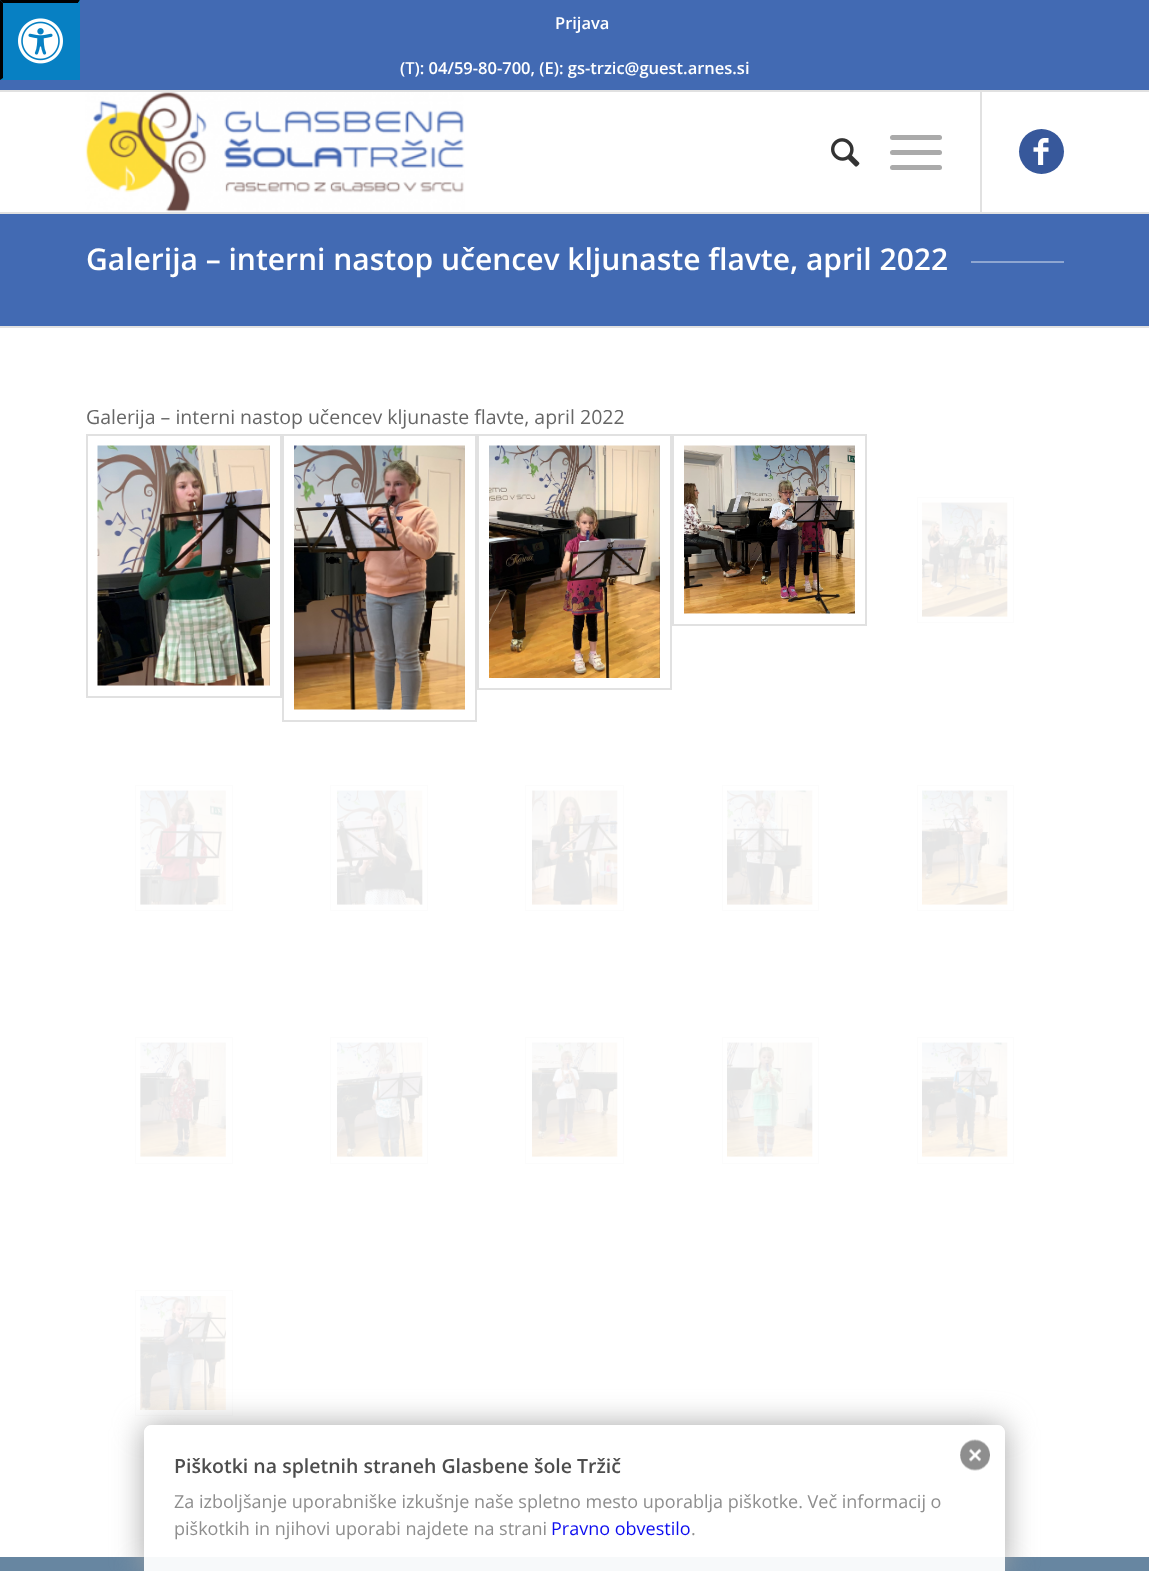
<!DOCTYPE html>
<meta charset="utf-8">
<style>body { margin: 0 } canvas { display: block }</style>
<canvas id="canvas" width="1149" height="1571"></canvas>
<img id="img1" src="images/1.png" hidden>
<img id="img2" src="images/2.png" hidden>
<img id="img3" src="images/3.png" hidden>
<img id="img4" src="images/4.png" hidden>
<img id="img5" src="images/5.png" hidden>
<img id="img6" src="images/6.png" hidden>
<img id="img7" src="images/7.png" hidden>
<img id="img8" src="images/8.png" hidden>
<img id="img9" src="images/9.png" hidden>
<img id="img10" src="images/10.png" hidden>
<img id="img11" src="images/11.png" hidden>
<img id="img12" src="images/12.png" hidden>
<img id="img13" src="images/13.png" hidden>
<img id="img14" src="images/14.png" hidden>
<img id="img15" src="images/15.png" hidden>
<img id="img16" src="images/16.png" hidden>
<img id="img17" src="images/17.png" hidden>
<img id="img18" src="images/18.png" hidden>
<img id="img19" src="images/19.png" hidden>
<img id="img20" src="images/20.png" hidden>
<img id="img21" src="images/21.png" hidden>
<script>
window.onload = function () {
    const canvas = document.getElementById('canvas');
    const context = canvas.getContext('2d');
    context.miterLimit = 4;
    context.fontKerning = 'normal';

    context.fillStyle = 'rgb(255, 255, 255)';
    context.fillRect(0, 0, 1149, 1571);
    context.fillStyle = 'rgb(66, 106, 179)';
    context.fillRect(0, 0, 1149, 90);
    context.fillStyle = 'rgb(7, 128, 195)';
    context.fillRect(0, 0, 80, 80);
    context.fillStyle = 'rgb(0, 0, 0)';
    context.beginPath();
    context.moveTo(0, 0);
    context.lineTo(80, 0);
    context.lineTo(78, 3);
    context.lineTo(3, 3);
    context.closePath();
    context.fill();
    context.fillStyle = 'rgb(7, 128, 195)';
    context.beginPath();
    context.moveTo(80, 0);
    context.lineTo(80, 80);
    context.lineTo(78, 78);
    context.lineTo(78, 3);
    context.closePath();
    context.fill();
    context.fillStyle = 'rgb(0, 0, 0)';
    context.beginPath();
    context.moveTo(0, 80);
    context.lineTo(0, 0);
    context.lineTo(3, 3);
    context.lineTo(3, 78);
    context.closePath();
    context.fill();
    context.drawImage(document.getElementById('img1'), 18, 18, 45, 46);
    context.fillStyle = 'rgb(225, 225, 225)';
    context.fillRect(0, 90, 1149, 2);
    context.fillRect(0, 212, 1149, 2);
    context.drawImage(document.getElementById('img2'), 85, 92, 380, 120);
    context.fillRect(980, 92, 2, 120);
    context.drawImage(document.getElementById('img3'), 831, 138, 29, 29);
    context.fillStyle = 'rgb(170, 170, 170)';
    context.beginPath();
    context.roundRect(890, 150, 52, 5, 2.5);
    context.fill();
    context.beginPath();
    context.roundRect(890, 135, 52, 5, 2.5);
    context.fill();
    context.beginPath();
    context.roundRect(890, 165, 52, 5, 2.5);
    context.fill();
    context.fillStyle = 'rgb(55, 88, 155)';
    context.beginPath();
    context.arc(1041.5, 151.5, 22.5, 0, 2 * Math.PI);
    context.fill();
    context.drawImage(document.getElementById('img4'), 1033, 138, 16, 27);
    context.fillStyle = 'rgb(66, 106, 179)';
    context.fillRect(0, 214, 1149, 112);
    context.fillStyle = 'rgb(142, 166, 209)';
    context.fillRect(971, 261, 93, 2);
    context.fillStyle = 'rgb(225, 225, 225)';
    context.fillRect(0, 326, 1149, 2);
    context.strokeStyle = 'rgb(225, 225, 225)';
    context.lineWidth = 2;
    context.strokeRect(87, 435, 194, 262);
    context.drawImage(document.getElementById('img5'), 97, 445, 173, 241);
    context.strokeRect(283, 435, 193, 286);
    context.drawImage(document.getElementById('img6'), 294, 445, 171, 265);
    context.strokeRect(478, 435, 193, 254);
    context.drawImage(document.getElementById('img7'), 489, 445, 171, 233);
    context.strokeRect(673, 435, 193, 190);
    context.drawImage(document.getElementById('img8'), 684, 445, 171, 169);
    context.strokeStyle = 'rgb(252, 252, 252)';
    context.lineWidth = 0.8;
    context.strokeRect(917.4, 497.4, 96.2, 125.2);
    context.drawImage(document.getElementById('img9'), 922, 502, 86, 115);
    context.strokeRect(135.4, 785.4, 97.2, 125.2);
    context.drawImage(document.getElementById('img10'), 140, 790, 86, 115);
    context.strokeRect(330.4, 785.4, 97.2, 125.2);
    context.drawImage(document.getElementById('img11'), 337, 790, 86, 115);
    context.strokeRect(525.4, 785.4, 98.2, 125.2);
    context.drawImage(document.getElementById('img12'), 532, 790, 86, 115);
    context.strokeRect(722.4, 785.4, 96.2, 125.2);
    context.drawImage(document.getElementById('img13'), 727, 790, 86, 115);
    context.strokeRect(917.4, 785.4, 96.2, 125.2);
    context.drawImage(document.getElementById('img14'), 922, 790, 86, 115);
    context.strokeRect(135.4, 1037.4, 97.2, 126.2);
    context.drawImage(document.getElementById('img15'), 140, 1042, 86, 115);
    context.strokeRect(330.4, 1037.4, 97.2, 126.2);
    context.drawImage(document.getElementById('img16'), 337, 1042, 86, 115);
    context.strokeRect(525.4, 1037.4, 98.2, 126.2);
    context.drawImage(document.getElementById('img17'), 532, 1042, 86, 115);
    context.strokeRect(722.4, 1037.4, 96.2, 126.2);
    context.drawImage(document.getElementById('img18'), 727, 1042, 86, 115);
    context.strokeRect(917.4, 1037.4, 96.2, 126.2);
    context.drawImage(document.getElementById('img19'), 922, 1042, 86, 115);
    context.strokeRect(135.4, 1290.4, 97.2, 125.2);
    context.drawImage(document.getElementById('img20'), 140, 1296, 86, 114);
    context.fillStyle = 'rgb(103, 134, 161)';
    context.fillRect(0, 1557, 1149, 14);
    context.save();
    context.beginPath();
    context.moveTo(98, 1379);
    context.lineTo(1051, 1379);
    context.lineTo(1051, 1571);
    context.lineTo(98, 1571);
    context.closePath();
    context.moveTo(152, 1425);
    context.lineTo(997, 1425);
    context.bezierCurveTo(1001.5, 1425, 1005, 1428.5, 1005, 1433);
    context.lineTo(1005, 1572);
    context.lineTo(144, 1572);
    context.lineTo(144, 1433);
    context.bezierCurveTo(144, 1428.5, 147.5, 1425, 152, 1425);
    context.closePath();
    context.clip('evenodd');
    context.fillStyle = 'rgba(161, 161, 161, 0.95)';
    context.filter = 'blur(15px)';
    context.beginPath();
    context.roundRect(144, 1425, 861, 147, 8);
    context.fill();
    context.filter = 'none';
    context.restore();
    context.fillStyle = 'rgba(255, 255, 255, 0.95)';
    context.beginPath();
    context.moveTo(152, 1425);
    context.lineTo(997, 1425);
    context.bezierCurveTo(1001.5, 1425, 1005, 1428.5, 1005, 1433);
    context.lineTo(1005, 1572);
    context.lineTo(144, 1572);
    context.lineTo(144, 1433);
    context.bezierCurveTo(144, 1428.5, 147.5, 1425, 152, 1425);
    context.closePath();
    context.fill();
    context.drawImage(document.getElementById('img21'), 960, 1439, 30, 32);
    context.font = '600 16.5px Open Sans';
    context.fillStyle = 'rgb(255, 255, 255)';
    context.fillText('Prijava', 555, 29);
    context.fillText('(T): 04/59-80-700, (E): gs-trzic@guest.arnes.si', 400, 74);
    context.font = '600 30px Open Sans';
    context.fillText('Galerija – interni nastop učencev kljunaste flavte, april 2022', 86, 270);
    context.font = '19.5px Open Sans';
    context.fillStyle = 'rgb(102, 102, 102)';
    context.fillText('Galerija – interni nastop učencev kljunaste flavte, april 2022', 86, 424);
    context.font = '600 19.5px Open Sans';
    context.fillStyle = 'rgb(77, 77, 77)';
    context.fillText('Piškotki na spletnih straneh Glasbene šole Tržič', 174, 1473);
    context.font = '18px Open Sans';
    context.fillStyle = 'rgb(142, 142, 142)';
    context.fillText('Za izboljšanje uporabniške izkušnje naše spletno mesto uporablja piškotke. Več informacij o', 174, 1508);
    context.fillText('piškotkih in njihovi uporabi najdete na strani', 174, 1535);
    context.fillStyle = 'rgb(13, 13, 239)';
    context.fillText('Pravno obvestilo', 551, 1535);
    context.fillStyle = 'rgb(142, 142, 142)';
    context.fillText('.', 691, 1535);
};
</script>
